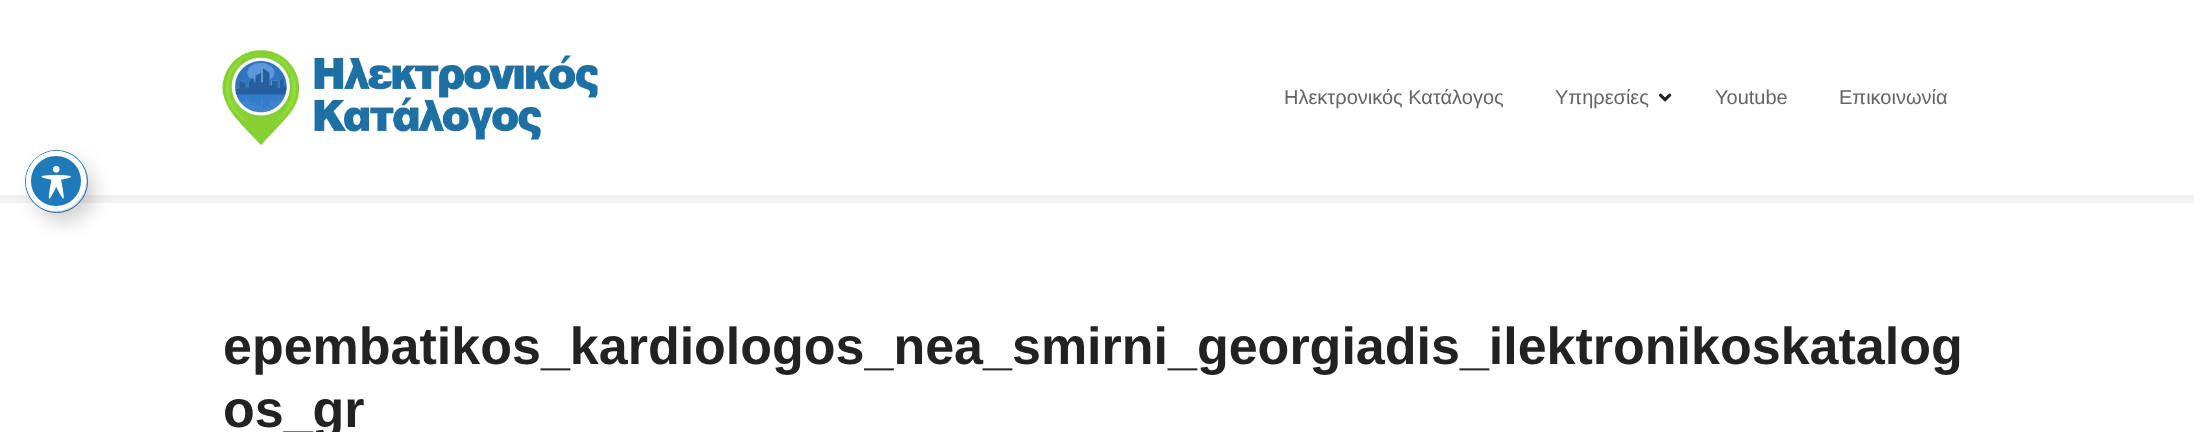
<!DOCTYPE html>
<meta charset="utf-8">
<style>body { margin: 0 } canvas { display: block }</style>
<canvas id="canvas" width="2194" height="432"></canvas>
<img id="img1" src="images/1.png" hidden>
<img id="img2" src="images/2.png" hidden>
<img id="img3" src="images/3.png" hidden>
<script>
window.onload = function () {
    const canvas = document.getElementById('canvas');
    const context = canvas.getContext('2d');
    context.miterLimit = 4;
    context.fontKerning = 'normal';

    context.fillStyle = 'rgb(255, 255, 255)';
    context.fillRect(0, 0, 2194, 432);
    context.fillStyle = 'rgb(242, 242, 242)';
    context.fillRect(0, 195, 2194, 8);
    context.beginPath();
    context.arc(56.5, 181.5, 31, 0, 2 * Math.PI);
    context.strokeStyle = 'rgb(30, 122, 185)';
    context.stroke();
    context.fillStyle = 'rgba(0, 0, 0, 0.2)';
    context.filter = 'blur(10px)';
    context.beginPath();
    context.roundRect(34, 161, 60, 60, 30);
    context.fill();
    context.filter = 'none';
    context.fillStyle = 'rgb(30, 122, 185)';
    context.beginPath();
    context.arc(56, 181, 27.5, 0, 2 * Math.PI);
    context.fill();
    context.strokeStyle = 'rgb(255, 255, 255)';
    context.lineWidth = 5;
    context.stroke();
    context.drawImage(document.getElementById('img1'), 41, 165, 30, 34);
    context.drawImage(document.getElementById('img2'), 222, 50, 376, 95);
    context.drawImage(document.getElementById('img3'), 1658, 93, 14, 9);
    context.font = '20px Arimo';
    context.fillStyle = 'rgb(100, 100, 100)';
    context.fillText('Ηλεκτρονικός Κατάλογος', 1284, 104);
    context.fillText('Υπηρεσίες', 1555, 104);
    context.fillText('Youtube', 1715, 104);
    context.fillText('Επικοινωνία', 1839, 104);
    context.font = 'bold 52px Arimo';
    context.fillStyle = 'rgb(34, 34, 34)';
    context.fillText('epembatikos_kardiologos_nea_smirni_georgiadis_ilektronikoskatalog', 223, 364);
    context.fillText('os_gr', 223, 427);
};
</script>
